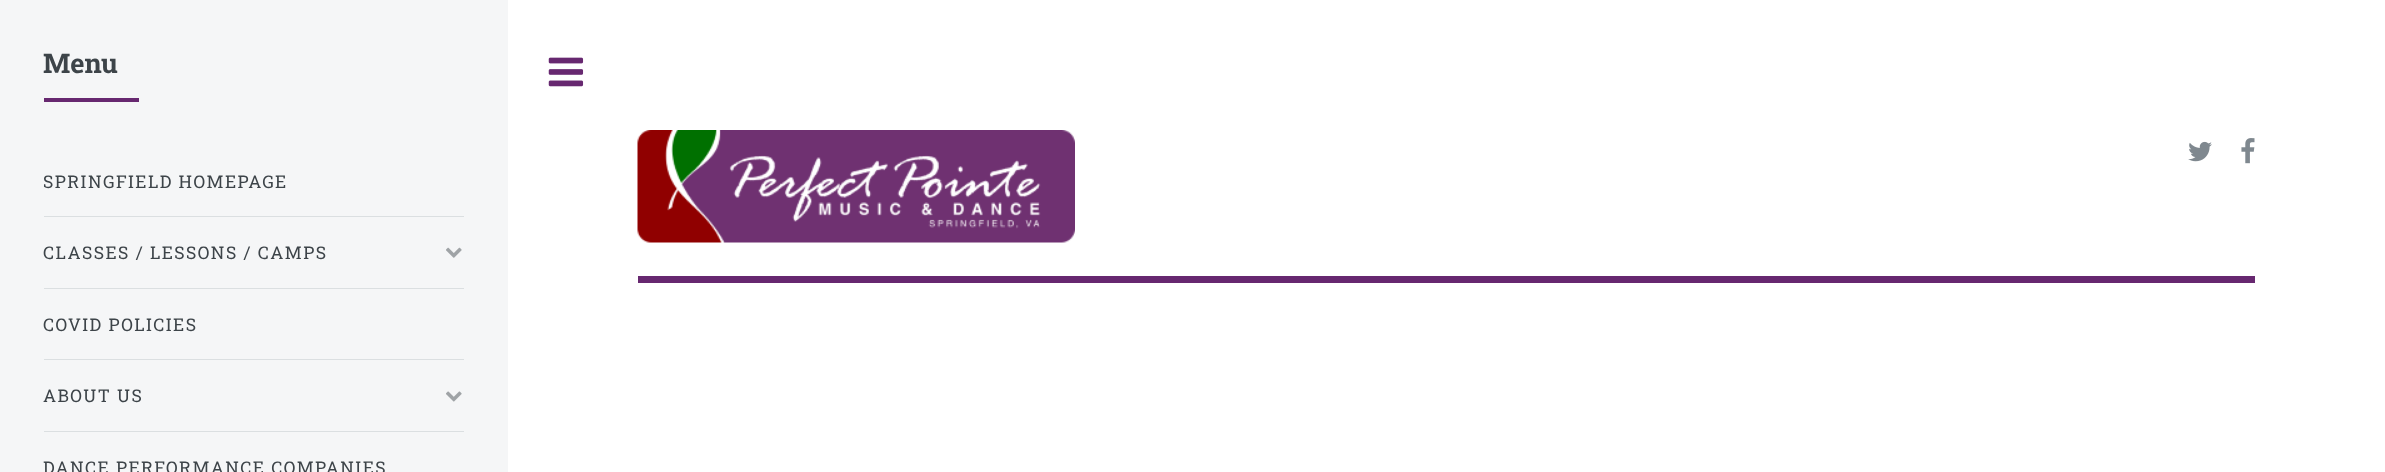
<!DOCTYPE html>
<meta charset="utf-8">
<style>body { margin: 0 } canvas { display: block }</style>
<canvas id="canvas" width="2385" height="472"></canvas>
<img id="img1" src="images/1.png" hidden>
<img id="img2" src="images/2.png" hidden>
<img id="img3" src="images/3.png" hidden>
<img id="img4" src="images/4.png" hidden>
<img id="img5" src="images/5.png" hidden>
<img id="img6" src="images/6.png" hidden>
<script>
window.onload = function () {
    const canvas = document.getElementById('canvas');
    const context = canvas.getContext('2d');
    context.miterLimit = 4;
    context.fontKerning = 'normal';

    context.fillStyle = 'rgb(255, 255, 255)';
    context.fillRect(0, 0, 2385, 472);
    context.fillStyle = 'rgb(245, 246, 247)';
    context.fillRect(0, 0, 508, 472);
    context.fillStyle = 'rgb(103, 40, 112)';
    context.fillRect(44, 98, 95, 4);
    context.fillStyle = 'rgb(219, 223, 225)';
    context.fillRect(44, 216, 420, 1);
    context.drawImage(document.getElementById('img1'), 446, 247, 16, 11);
    context.fillRect(44, 288, 420, 1);
    context.fillRect(44, 359, 420, 1);
    context.drawImage(document.getElementById('img2'), 446, 391, 16, 11);
    context.fillRect(44, 431, 420, 1);
    context.drawImage(document.getElementById('img3'), 548, 57, 36, 30);
    context.fillStyle = 'rgb(103, 40, 112)';
    context.fillRect(638, 276, 1617, 7);
    context.drawImage(document.getElementById('img4'), 637, 130, 438, 113);
    context.drawImage(document.getElementById('img5'), 2188, 141, 24, 21);
    context.drawImage(document.getElementById('img6'), 2241, 138, 14, 26);
    context.font = 'bold 27px Roboto Slab';
    context.fillStyle = 'rgb(61, 68, 73)';
    context.fillText('Menu', 43, 73);
    context.letterSpacing = '1.45px';
    context.font = '17.5px Roboto Slab';
    context.fillText('SPRINGFIELD HOMEPAGE', 43, 188);
    context.fillText('CLASSES / LESSONS / CAMPS', 43, 259);
    context.fillText('COVID POLICIES', 43, 331);
    context.fillText('ABOUT US', 43, 402);
    context.fillText('DANCE PERFORMANCE COMPANIES', 43, 474);
};
</script>
